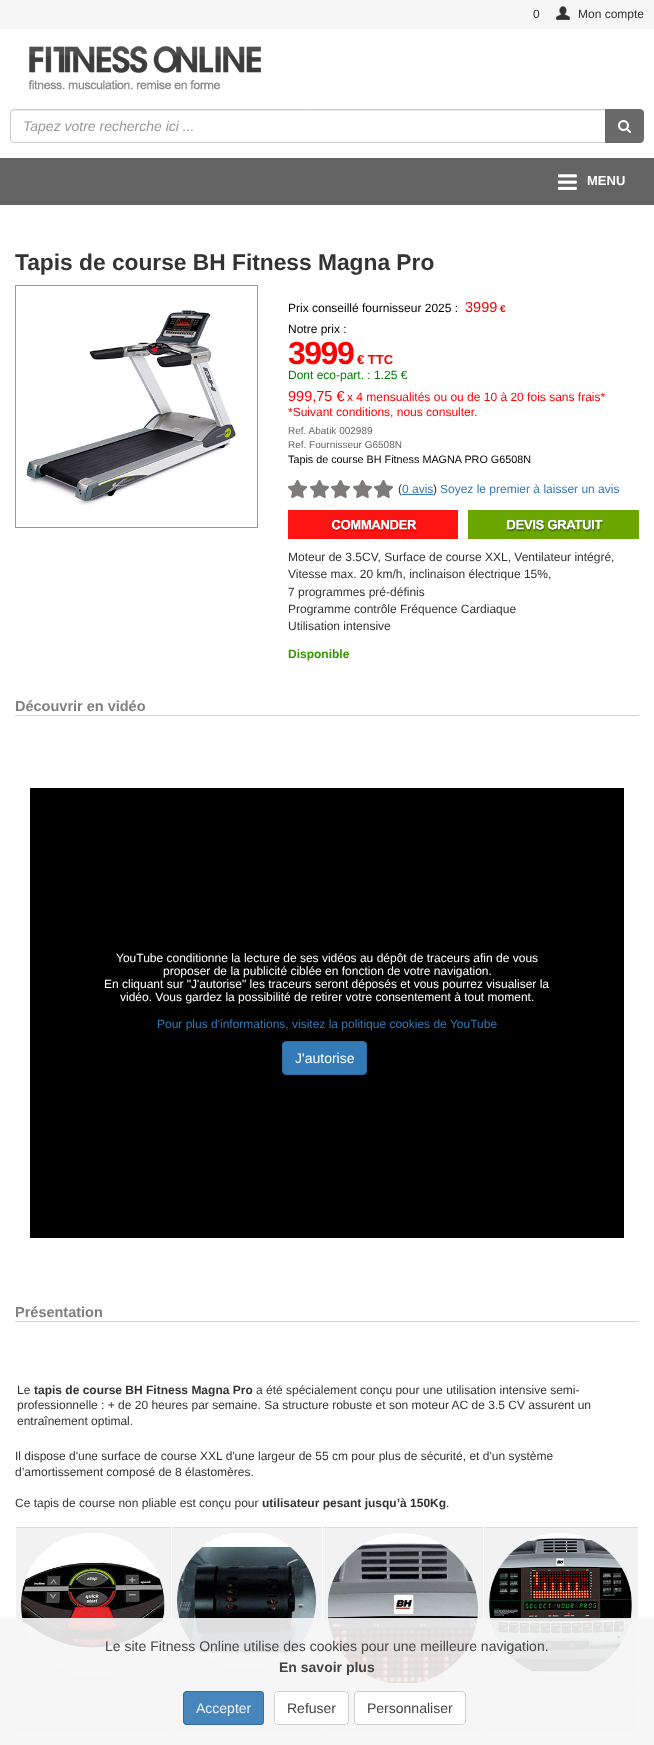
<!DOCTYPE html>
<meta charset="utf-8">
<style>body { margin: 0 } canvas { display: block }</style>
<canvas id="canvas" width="654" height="1745"></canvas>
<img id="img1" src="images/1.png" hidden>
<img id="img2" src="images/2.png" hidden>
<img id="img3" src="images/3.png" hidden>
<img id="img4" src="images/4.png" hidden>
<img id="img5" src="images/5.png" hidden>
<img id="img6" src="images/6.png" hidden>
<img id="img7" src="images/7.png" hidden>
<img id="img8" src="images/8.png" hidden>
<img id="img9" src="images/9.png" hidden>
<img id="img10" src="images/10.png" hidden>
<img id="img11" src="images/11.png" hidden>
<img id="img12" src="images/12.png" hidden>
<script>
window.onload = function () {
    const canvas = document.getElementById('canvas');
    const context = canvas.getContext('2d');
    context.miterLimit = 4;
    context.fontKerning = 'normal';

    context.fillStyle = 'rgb(255, 255, 255)';
    context.fillRect(0, 0, 654, 1745);
    context.fillStyle = 'rgb(246, 246, 246)';
    context.fillRect(0, 0, 654, 29);
    context.drawImage(document.getElementById('img1'), 556, 6, 14, 14);
    context.drawImage(document.getElementById('img2'), 28, 46, 233, 44);
    context.fillStyle = 'rgb(236, 236, 236)';
    context.beginPath();
    context.moveTo(14, 111);
    context.lineTo(605, 111);
    context.lineTo(605, 110);
    context.lineTo(14, 110);
    context.bezierCurveTo(12, 110, 11, 111, 11, 113);
    context.lineTo(11, 114);
    context.bezierCurveTo(11, 112, 12, 111, 14, 111);
    context.closePath();
    context.fill();
    context.beginPath();
    context.roundRect(10.5, 109.5, 595, 33, [3.5, 0, 0, 3.5]);
    context.strokeStyle = 'rgb(204, 204, 204)';
    context.stroke();
    context.fillStyle = 'rgb(105, 106, 105)';
    context.beginPath();
    context.roundRect(605.5, 109.5, 38, 33, [0, 3.5, 3.5, 0]);
    context.fill();
    context.strokeStyle = 'rgb(105, 106, 105)';
    context.stroke();
    context.drawImage(document.getElementById('img3'), 618, 120, 13, 13);
    context.fillStyle = 'rgb(100, 100, 100)';
    context.fillRect(0, 158, 654, 47);
    context.drawImage(document.getElementById('img4'), 558, 174, 19, 16);
    context.strokeStyle = 'rgb(153, 153, 153)';
    context.strokeRect(15.5, 285.5, 242, 242);
    context.drawImage(document.getElementById('img5'), 26, 310, 210, 196);
    context.drawImage(document.getElementById('img6'), 288, 480, 105, 18);
    context.fillStyle = 'rgb(51, 122, 183)';
    context.fillRect(402, 494, 31, 1);
    context.fillStyle = 'rgb(255, 20, 20)';
    context.fillRect(288, 510, 170, 29);
    context.drawImage(document.getElementById('img7'), 331, 520, 87, 12);
    context.fillStyle = 'rgb(106, 165, 0)';
    context.fillRect(468, 510, 171, 29);
    context.drawImage(document.getElementById('img8'), 507, 518, 97, 14);
    context.fillStyle = 'rgb(213, 213, 213)';
    context.fillRect(15, 715, 624, 1);
    context.fillStyle = 'rgb(0, 0, 0)';
    context.fillRect(30, 788, 594, 450);
    context.fillStyle = 'rgb(51, 122, 183)';
    context.beginPath();
    context.roundRect(282.5, 1041.5, 84, 33, 3.5);
    context.fill();
    context.strokeStyle = 'rgb(46, 109, 164)';
    context.stroke();
    context.fillStyle = 'rgb(213, 213, 213)';
    context.fillRect(15, 1321, 624, 1);
    context.fillStyle = 'rgb(243, 242, 243)';
    context.fillRect(16, 1528, 155, 160);
    context.fillStyle = 'rgb(221, 221, 221)';
    context.fillRect(15, 1527, 624, 1);
    context.fillStyle = 'rgb(255, 255, 255)';
    context.fillRect(171, 1527, 1, 1);
    context.fillRect(15, 1527, 1, 1);
    context.drawImage(document.getElementById('img9'), 21, 1533, 144, 143);
    context.fillStyle = 'rgb(243, 242, 243)';
    context.fillRect(484, 1528, 154, 160);
    context.fillStyle = 'rgb(255, 255, 255)';
    context.fillRect(638, 1527, 1, 1);
    context.drawImage(document.getElementById('img10'), 489, 1533, 143, 144);
    context.fillStyle = 'rgb(243, 242, 243)';
    context.fillRect(172, 1528, 150, 160);
    context.fillStyle = 'rgb(255, 255, 255)';
    context.fillRect(322, 1527, 1, 1);
    context.drawImage(document.getElementById('img11'), 177, 1533, 139, 136);
    context.fillStyle = 'rgb(243, 242, 243)';
    context.fillRect(323, 1528, 160, 160);
    context.fillStyle = 'rgb(255, 255, 255)';
    context.fillRect(483, 1527, 1, 1);
    context.drawImage(document.getElementById('img12'), 328, 1533, 150, 150);
    context.fillStyle = 'rgb(243, 242, 243)';
    context.fillRect(16, 1689, 155, 44);
    context.fillRect(172, 1689, 150, 44);
    context.fillRect(323, 1689, 160, 44);
    context.fillRect(484, 1689, 154, 44);
    context.fillStyle = 'rgba(246, 246, 246, 0.9)';
    context.fillRect(0, 1618, 654, 127);
    context.fillStyle = 'rgba(51, 122, 183, 0.9)';
    context.beginPath();
    context.roundRect(183, 1691, 81, 34, 4);
    context.fill();
    context.beginPath();
    context.roundRect(183.5, 1691.5, 80, 33, 3.5);
    context.strokeStyle = 'rgba(46, 109, 164, 0.9)';
    context.stroke();
    context.fillStyle = 'rgb(254, 254, 254)';
    context.beginPath();
    context.roundRect(274, 1691, 75, 34, 4);
    context.fill();
    context.beginPath();
    context.roundRect(274.5, 1691.5, 74, 33, 3.5);
    context.strokeStyle = 'rgba(204, 204, 204, 0.9)';
    context.stroke();
    context.fillStyle = 'rgba(255, 255, 255, 0.9)';
    context.beginPath();
    context.roundRect(354.5, 1691.5, 111, 33, 3.5);
    context.fill();
    context.strokeStyle = 'rgb(208, 208, 208)';
    context.stroke();
    context.font = '12px Liberation Sans';
    context.fillStyle = 'rgb(51, 51, 51)';
    context.fillText('0', 533, 18);
    context.fillText('Mon compte', 578, 18);
    context.font = 'italic 14px Liberation Sans';
    context.fillStyle = 'rgb(153, 153, 153)';
    context.fillText('Tapez votre recherche ici ...', 23, 131);
    context.font = 'bold 13px Liberation Sans';
    context.fillStyle = 'rgb(255, 255, 255)';
    context.fillText('MENU', 587, 185);
    context.font = 'bold 22.75px Liberation Sans';
    context.fillStyle = 'rgb(51, 51, 51)';
    context.fillText('Tapis de course BH Fitness Magna Pro', 15, 270);
    context.font = '12px Liberation Sans';
    context.fillStyle = 'rgb(0, 0, 0)';
    context.fillText('Prix conseillé fournisseur 2025 :', 288, 312);
    context.font = '14.5px Liberation Sans';
    context.fillStyle = 'rgb(255, 0, 0)';
    context.fillText('3999', 465, 312);
    context.font = 'bold 10px Liberation Sans';
    context.fillText('€', 500, 312);
    context.font = '12px Liberation Sans';
    context.fillStyle = 'rgb(0, 0, 0)';
    context.fillText('Notre prix :', 288, 333);
    context.letterSpacing = '-1.5px';
    context.font = 'bold 32px Liberation Sans';
    context.fillStyle = 'rgb(255, 0, 0)';
    context.fillText('3999', 288, 364);
    context.letterSpacing = '0px';
    context.font = 'bold 13px Liberation Sans';
    context.fillText('€ TTC', 357, 364);
    context.font = '12px Liberation Sans';
    context.fillStyle = 'rgb(0, 128, 0)';
    context.fillText('Dont eco-part. : 1.25 €', 288, 379);
    context.font = '14.5px Liberation Sans';
    context.fillStyle = 'rgb(255, 0, 0)';
    context.fillText('999,75 €', 288, 401);
    context.font = '12px Liberation Sans';
    context.fillText('x 4 mensualités ou ou de 10 à 20 fois sans frais*', 347, 401);
    context.fillText('*Suivant conditions, nous consulter.', 288, 416);
    context.font = '10px Liberation Sans';
    context.fillStyle = 'rgb(102, 102, 102)';
    context.fillText('Ref. Abatik 002989', 288, 434);
    context.fillText('Ref. Fournisseur G6508N', 288, 448);
    context.font = '10.8px Liberation Sans';
    context.fillStyle = 'rgb(0, 0, 0)';
    context.fillText('Tapis de course BH Fitness MAGNA PRO G6508N', 288, 463);
    context.font = '12px Liberation Sans';
    context.fillStyle = 'rgb(51, 51, 51)';
    context.fillText('(', 398, 493);
    context.fillStyle = 'rgb(51, 122, 183)';
    context.fillText('0 avis', 402, 493);
    context.fillStyle = 'rgb(51, 51, 51)';
    context.fillText(')', 433, 493);
    context.fillStyle = 'rgb(51, 122, 183)';
    context.fillText('Soyez le premier à laisser un avis', 440, 493);
    context.fillStyle = 'rgb(51, 51, 51)';
    context.fillText('Moteur de 3.5CV, Surface de course XXL, Ventilateur intégré,', 288, 561);
    context.fillText('Vitesse max. 20 km/h, inclinaison électrique 15%,', 288, 578);
    context.fillText('7 programmes pré-définis', 288, 596);
    context.fillText('Programme contrôle Fréquence Cardiaque', 288, 613);
    context.fillText('Utilisation intensive', 288, 630);
    context.font = 'bold 12px Liberation Sans';
    context.fillStyle = 'rgb(51, 153, 0)';
    context.fillText('Disponible', 288, 658);
    context.font = 'bold 14.5px Liberation Sans';
    context.fillStyle = 'rgb(128, 128, 128)';
    context.fillText('Découvrir en vidéo', 15, 711);
    context.font = '12px Liberation Sans';
    context.fillStyle = 'rgb(255, 255, 255)';
    context.fillText('YouTube conditionne la lecture de ses vidéos au dépôt de traceurs afin de vous', 116, 962);
    context.fillText('proposer de la publicité ciblée en fonction de votre navigation.', 163, 975);
    context.fillText('En cliquant sur "J\'autorise" les traceurs seront déposés et vous pourrez visualiser la', 104, 988);
    context.fillText('vidéo. Vous gardez la possibilité de retirer votre consentement à tout moment.', 120, 1001);
    context.fillStyle = 'rgb(51, 122, 183)';
    context.fillText('Pour plus d\'informations, visitez la politique cookies de YouTube', 157, 1028);
    context.font = '14px Liberation Sans';
    context.fillStyle = 'rgb(255, 255, 255)';
    context.fillText('J\'autorise', 295, 1063);
    context.font = 'bold 14.5px Liberation Sans';
    context.fillStyle = 'rgb(128, 128, 128)';
    context.fillText('Présentation', 15, 1317);
    context.font = '12px Liberation Sans';
    context.fillStyle = 'rgb(51, 51, 51)';
    context.fillText('Le', 17, 1394);
    context.font = 'bold 12px Liberation Sans';
    context.fillText('tapis de course BH Fitness Magna Pro', 34, 1394);
    context.font = '12px Liberation Sans';
    context.fillText('a été spécialement conçu pour une utilisation intensive semi-', 256, 1394);
    context.fillText('professionnelle : + de 20 heures par semaine. Sa structure robuste et son moteur AC de 3.5 CV assurent un', 17, 1409);
    context.fillText('entraînement optimal.', 17, 1425);
    context.fillText('Il dispose d\'une surface de course XXL d\'une largeur de 55 cm pour plus de sécurité, et d\'un système', 15, 1460);
    context.fillText('d’amortissement composé de 8 élastomères.', 15, 1476);
    context.fillText('Ce tapis de course non pliable est conçu pour', 15, 1507);
    context.font = 'bold 12px Liberation Sans';
    context.fillText('utilisateur pesant jusqu’à 150Kg', 262, 1507);
    context.font = '12px Liberation Sans';
    context.fillText('.', 446, 1507);
    context.font = '14px Liberation Sans';
    context.fillStyle = 'rgb(69, 69, 69)';
    context.fillText('Le site Fitness Online utilise des cookies pour une meilleure navigation.', 105, 1651);
    context.font = 'bold 14px Liberation Sans';
    context.fillText('En savoir plus', 279, 1672);
    context.font = '14px Liberation Sans';
    context.fillStyle = 'rgb(237, 243, 248)';
    context.fillText('Accepter', 196, 1713);
    context.fillStyle = 'rgb(69, 69, 69)';
    context.fillText('Refuser', 287, 1713);
    context.fillText('Personnaliser', 367, 1713);
};
</script>
